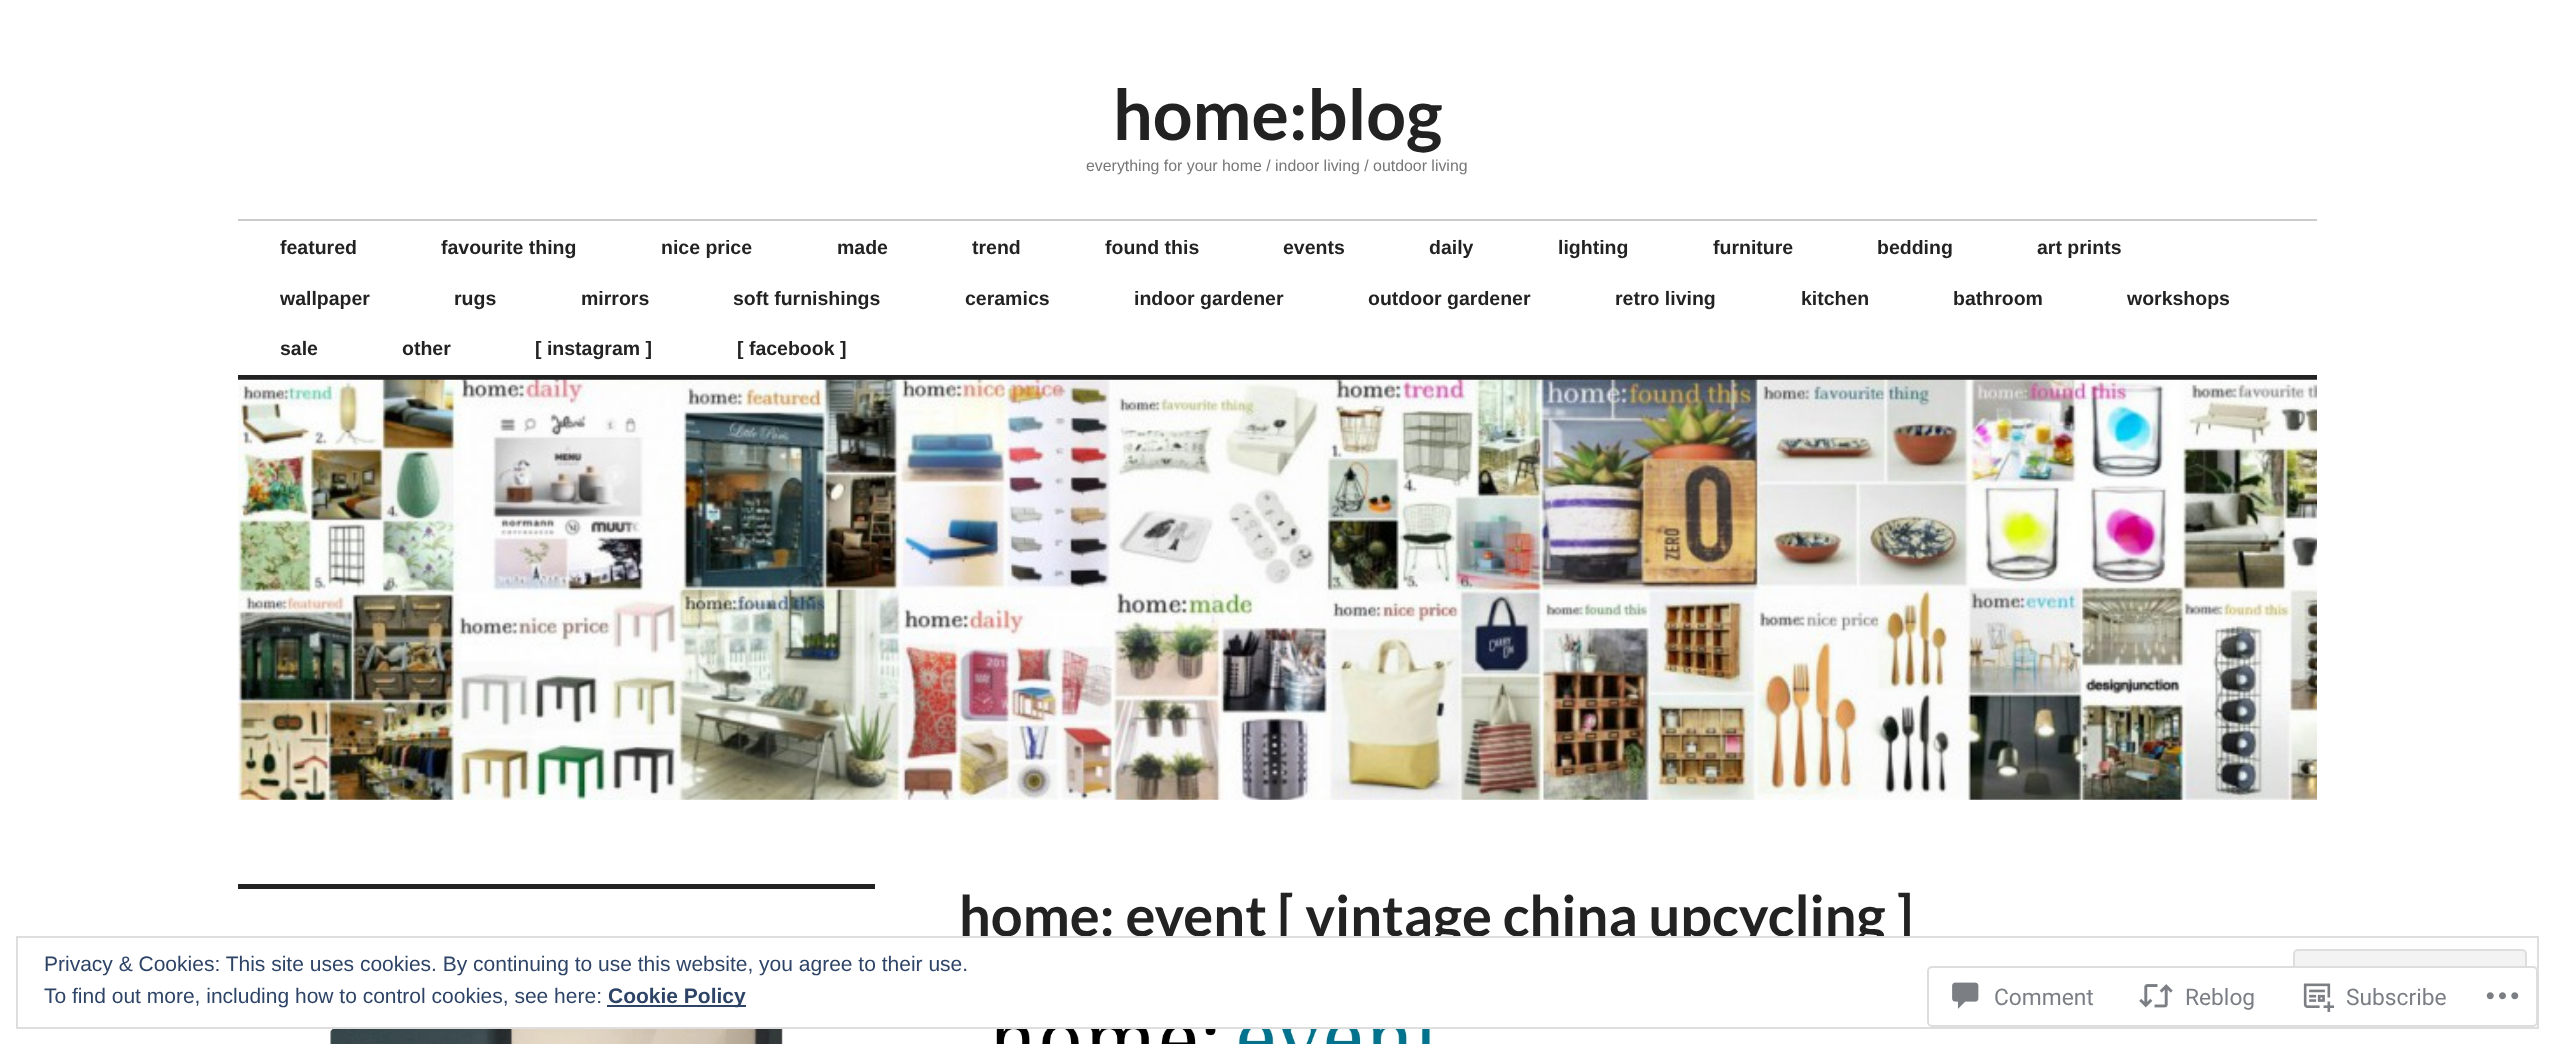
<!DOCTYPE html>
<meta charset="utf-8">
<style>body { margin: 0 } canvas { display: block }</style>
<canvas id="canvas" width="2555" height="1044"></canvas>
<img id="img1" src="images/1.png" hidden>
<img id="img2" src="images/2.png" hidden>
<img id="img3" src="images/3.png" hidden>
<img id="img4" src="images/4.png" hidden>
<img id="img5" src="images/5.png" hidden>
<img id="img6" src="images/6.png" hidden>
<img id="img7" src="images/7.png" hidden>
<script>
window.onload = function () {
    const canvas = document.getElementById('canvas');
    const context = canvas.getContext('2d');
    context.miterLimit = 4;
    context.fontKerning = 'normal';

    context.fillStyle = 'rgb(255, 255, 255)';
    context.fillRect(0, 0, 2555, 1044);
    context.fillStyle = 'rgb(204, 204, 204)';
    context.fillRect(238, 219, 2079, 2);
    context.fillStyle = 'rgb(34, 34, 34)';
    context.fillRect(238, 375, 2079, 5);
    context.drawImage(document.getElementById('img1'), 238, 379, 2079, 421);
    context.fillRect(238, 884, 637, 5);
    context.drawImage(document.getElementById('img2'), 330, 1029, 453, 15);
    context.drawImage(document.getElementById('img3'), 989, 1029, 452, 15);
    context.font = 'bold 70px Lato';
    context.fillText('home:blog', 1113, 140);
    context.font = '15.9px Arimo';
    context.fillStyle = 'rgb(119, 119, 119)';
    context.fillText('everything for your home / indoor living / outdoor living', 1086, 171);
    context.font = 'bold 19.5px Arimo';
    context.fillStyle = 'rgb(34, 34, 34)';
    context.fillText('featured', 280, 254);
    context.fillText('favourite thing', 441, 254);
    context.fillText('nice price', 661, 254);
    context.fillText('made', 837, 254);
    context.fillText('trend', 972, 254);
    context.fillText('found this', 1105, 254);
    context.fillText('events', 1283, 254);
    context.fillText('daily', 1429, 254);
    context.fillText('lighting', 1558, 254);
    context.fillText('furniture', 1713, 254);
    context.fillText('bedding', 1877, 254);
    context.fillText('art prints', 2037, 254);
    context.fillText('wallpaper', 280, 305);
    context.fillText('rugs', 454, 305);
    context.fillText('mirrors', 581, 305);
    context.fillText('soft furnishings', 733, 305);
    context.fillText('ceramics', 965, 305);
    context.fillText('indoor gardener', 1134, 305);
    context.fillText('outdoor gardener', 1368, 305);
    context.fillText('retro living', 1615, 305);
    context.fillText('kitchen', 1801, 305);
    context.fillText('bathroom', 1953, 305);
    context.fillText('workshops', 2127, 305);
    context.fillText('sale', 280, 355);
    context.fillText('other', 402, 355);
    context.fillText('[ instagram ]', 535, 355);
    context.fillText('[ facebook ]', 737, 355);
    context.font = 'bold 56px Lato';
    context.fillText('home: event [ vintage china upcycling ]', 959, 936);
    context.fillStyle = 'rgb(255, 255, 255)';
    context.fillRect(1280, 938, 630, 9);
    context.strokeStyle = 'rgb(222, 222, 222)';
    context.lineWidth = 2;
    context.strokeRect(17, 937, 2521, 91);
    context.font = '21px Arimo';
    context.fillStyle = 'rgb(46, 68, 103)';
    context.fillText('Privacy & Cookies: This site uses cookies. By continuing to use this website, you agree to their use.', 44, 971);
    context.fillStyle = 'rgb(243, 243, 243)';
    context.beginPath();
    context.roundRect(2294, 950, 232, 66, 4);
    context.fill();
    context.stroke();
    context.fillStyle = 'rgb(46, 68, 103)';
    context.fillText('To find out more, including how to control cookies, see here:', 44, 1003);
    context.fillRect(607, 1005, 139, 2);
    context.font = 'bold 21px Arimo';
    context.fillText('Cookie Policy', 608, 1003);
    context.fillStyle = 'rgba(255, 255, 255, 0.98)';
    context.beginPath();
    context.roundRect(1927, 966, 611, 61, 5);
    context.fill();
    context.beginPath();
    context.roundRect(1928, 967, 609, 59, 4);
    context.strokeStyle = 'rgba(220, 220, 222, 0.98)';
    context.stroke();
    context.drawImage(document.getElementById('img4'), 1952, 982, 27, 27);
    context.font = '22.75px Roboto';
    context.fillStyle = 'rgb(123, 127, 133)';
    context.fillText('Comment', 1994, 1005);
    context.drawImage(document.getElementById('img5'), 2139, 984, 34, 24);
    context.fillText('Reblog', 2185, 1005);
    context.drawImage(document.getElementById('img6'), 2303, 983, 32, 29);
    context.fillText('Subscribe', 2346, 1005);
    context.drawImage(document.getElementById('img7'), 2486, 992, 33, 8);
};
</script>
